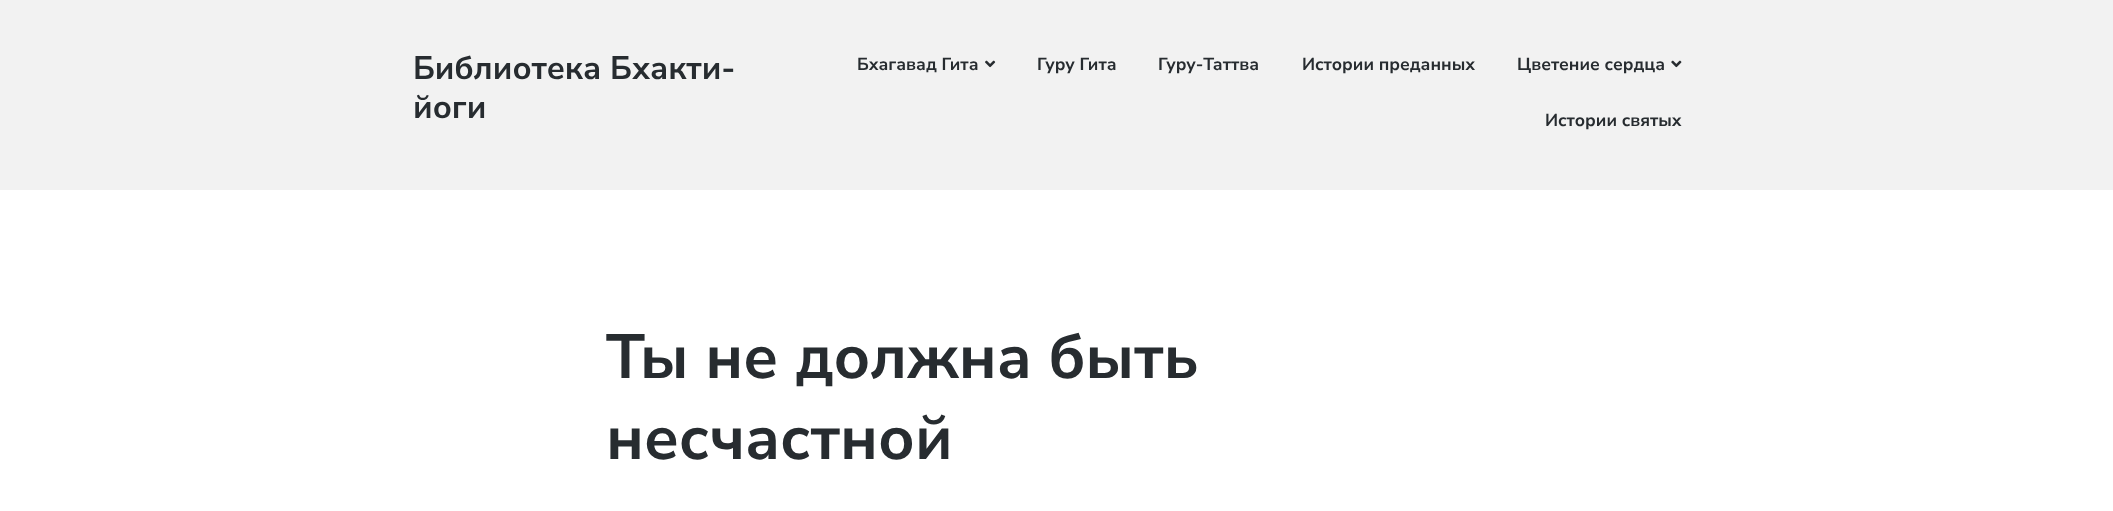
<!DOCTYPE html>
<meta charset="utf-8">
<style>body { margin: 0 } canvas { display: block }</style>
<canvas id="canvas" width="2113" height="511"></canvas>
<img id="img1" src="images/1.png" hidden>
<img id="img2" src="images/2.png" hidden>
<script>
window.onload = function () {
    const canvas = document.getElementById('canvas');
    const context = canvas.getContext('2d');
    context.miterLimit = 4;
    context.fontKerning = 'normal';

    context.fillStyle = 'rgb(255, 255, 255)';
    context.fillRect(0, 0, 2113, 511);
    context.fillStyle = 'rgb(242, 242, 242)';
    context.fillRect(0, 0, 2113, 190);
    context.drawImage(document.getElementById('img1'), 985, 60, 11, 8);
    context.drawImage(document.getElementById('img2'), 1671, 60, 11, 8);
    context.font = 'bold 32.5px Nunito Sans';
    context.fillStyle = 'rgb(39, 44, 48)';
    context.fillText('Библиотека Бхакти-', 413, 79);
    context.fillText('йоги', 413, 118);
    context.font = 'bold 17.5px Nunito Sans';
    context.fillText('Бхагавад Гита', 857, 70);
    context.fillText('Гуру Гита', 1037, 70);
    context.fillText('Гуру-Таттва', 1158, 70);
    context.fillText('Истории преданных', 1302, 70);
    context.fillText('Цветение сердца', 1517, 70);
    context.fillText('Истории святых', 1545, 126);
    context.font = 'bold 62.5px Nunito Sans';
    context.fillText('Ты не должна быть', 606, 378);
    context.fillText('несчастной', 606, 459);
};
</script>
